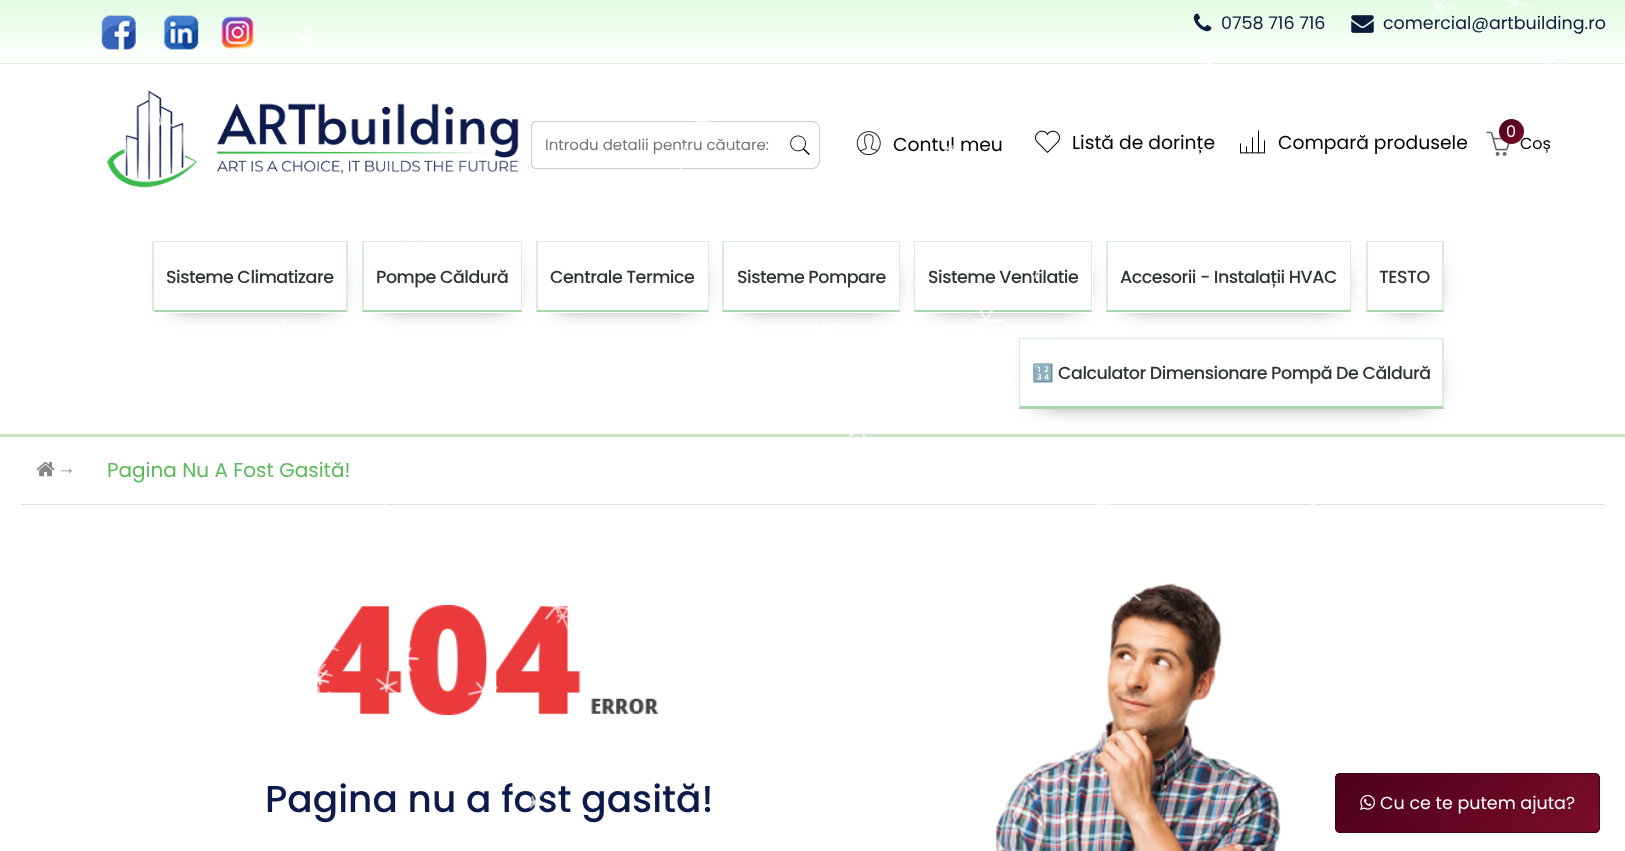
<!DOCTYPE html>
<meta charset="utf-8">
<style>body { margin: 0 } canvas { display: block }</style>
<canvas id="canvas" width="1625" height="851"></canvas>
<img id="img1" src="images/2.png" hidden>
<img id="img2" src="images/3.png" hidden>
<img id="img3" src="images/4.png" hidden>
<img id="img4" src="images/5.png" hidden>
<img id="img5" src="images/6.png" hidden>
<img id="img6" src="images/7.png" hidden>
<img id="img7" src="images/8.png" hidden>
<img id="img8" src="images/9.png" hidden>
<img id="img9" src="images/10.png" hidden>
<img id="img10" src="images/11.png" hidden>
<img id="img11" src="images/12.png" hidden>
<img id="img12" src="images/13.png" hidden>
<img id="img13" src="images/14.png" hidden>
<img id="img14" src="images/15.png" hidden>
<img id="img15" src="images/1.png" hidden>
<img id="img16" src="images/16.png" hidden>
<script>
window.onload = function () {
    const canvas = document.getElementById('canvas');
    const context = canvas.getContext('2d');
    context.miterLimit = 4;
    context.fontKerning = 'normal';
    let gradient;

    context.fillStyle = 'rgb(255, 255, 255)';
    context.fillRect(0, 0, 1625, 851);
    context.fillStyle = 'rgb(198, 230, 198)';
    context.fillRect(0, 434, 1625, 3);
    gradient = context.createLinearGradient(813, 0, 813, 63);
    gradient.addColorStop(0, 'rgb(226, 251, 226)');
    gradient.addColorStop(1, 'rgb(255, 255, 255)');
    context.fillStyle = gradient;
    context.fillRect(0, 0, 1625, 58);
    context.fillStyle = 'rgb(220, 242, 220)';
    context.fillRect(0, 63, 1625, 1);
    context.drawImage(document.getElementById('img1'), 101, 15, 35, 35);
    context.drawImage(document.getElementById('img2'), 164, 15, 35, 35);
    context.drawImage(document.getElementById('img3'), 221, 16, 33, 33);
    context.drawImage(document.getElementById('img4'), 1193, 13, 19, 19);
    context.drawImage(document.getElementById('img5'), 1351, 15, 23, 18);
    context.drawImage(document.getElementById('img6'), 106, 90, 413, 98);
    context.fillStyle = 'rgb(204, 204, 204)';
    context.beginPath();
    context.moveTo(536, 121);
    context.lineTo(781, 121);
    context.lineTo(781, 169);
    context.lineTo(536, 169);
    context.bezierCurveTo(533, 169, 531, 167, 531, 164);
    context.lineTo(531, 126);
    context.bezierCurveTo(531, 123, 533, 121, 536, 121);
    context.closePath();
    context.moveTo(536, 122);
    context.lineTo(781, 122);
    context.lineTo(781, 168);
    context.lineTo(536, 168);
    context.bezierCurveTo(534, 168, 532, 166, 532, 164);
    context.lineTo(532, 126);
    context.bezierCurveTo(532, 124, 534, 122, 536, 122);
    context.closePath();
    context.fill('evenodd');
    context.beginPath();
    context.moveTo(781, 121);
    context.lineTo(812, 121);
    context.bezierCurveTo(817, 121, 820, 125, 820, 129);
    context.lineTo(820, 161);
    context.bezierCurveTo(820, 165, 817, 169, 812, 169);
    context.lineTo(781, 169);
    context.closePath();
    context.moveTo(781, 122);
    context.lineTo(812, 122);
    context.bezierCurveTo(816, 122, 819, 125, 819, 129);
    context.lineTo(819, 161);
    context.bezierCurveTo(819, 165, 816, 168, 812, 168);
    context.lineTo(781, 168);
    context.closePath();
    context.fill('evenodd');
    context.drawImage(document.getElementById('img7'), 790, 135, 20, 20);
    context.drawImage(document.getElementById('img8'), 856, 131, 25, 25);
    context.drawImage(document.getElementById('img9'), 1035, 130, 25, 23);
    context.drawImage(document.getElementById('img10'), 1240, 130, 25, 24);
    context.drawImage(document.getElementById('img11'), 1486, 131, 24, 25);
    context.fillStyle = 'rgb(0, 0, 0)';
    context.filter = 'blur(12.5px)';
    context.beginPath();
    context.rect(174, 268, 157, 33);
    context.fill();
    context.filter = 'none';
    context.fillStyle = 'rgb(255, 255, 255)';
    context.beginPath();
    context.roundRect(153, 241, 195, 72, [2.5, 0, 0, 2.5]);
    context.fill();
    context.fillStyle = 'rgb(218, 237, 218)';
    context.beginPath();
    context.moveTo(155, 242);
    context.lineTo(154, 243);
    context.lineTo(153, 242);
    context.lineTo(154, 241);
    context.lineTo(348, 241);
    context.lineTo(346, 243);
    context.lineTo(346, 242);
    context.closePath();
    context.fill();
    context.fillStyle = 'rgba(86, 173, 86, 0.22)';
    context.beginPath();
    context.moveTo(348, 241);
    context.lineTo(348, 312);
    context.lineTo(346, 310);
    context.lineTo(346, 243);
    context.closePath();
    context.fill();
    context.fillStyle = 'rgb(171, 214, 171)';
    context.beginPath();
    context.moveTo(347, 312);
    context.lineTo(155, 312);
    context.lineTo(153, 311);
    context.lineTo(154, 310);
    context.lineTo(346, 310);
    context.closePath();
    context.fill();
    context.fillStyle = 'rgba(86, 173, 86, 0.22)';
    context.beginPath();
    context.moveTo(152, 242);
    context.lineTo(153, 242);
    context.lineTo(154, 243);
    context.lineTo(154, 299);
    context.bezierCurveTo(154, 310, 156, 306, 153, 311);
    context.lineTo(152, 311);
    context.closePath();
    context.fill();
    context.fillStyle = 'rgb(0, 0, 0)';
    context.filter = 'blur(12.5px)';
    context.beginPath();
    context.rect(384, 268, 122, 33);
    context.fill();
    context.filter = 'none';
    context.fillStyle = 'rgb(255, 255, 255)';
    context.fillRect(363, 241, 160, 72);
    context.fillStyle = 'rgb(218, 237, 218)';
    context.beginPath();
    context.moveTo(362, 241);
    context.lineTo(522, 241);
    context.lineTo(521, 242);
    context.lineTo(364, 242);
    context.closePath();
    context.fill();
    context.fillStyle = 'rgba(86, 173, 86, 0.22)';
    context.beginPath();
    context.moveTo(522, 241);
    context.lineTo(522, 312);
    context.lineTo(521, 310);
    context.lineTo(521, 242);
    context.closePath();
    context.fill();
    context.fillStyle = 'rgba(86, 173, 86, 0.5)';
    context.beginPath();
    context.moveTo(522, 312);
    context.lineTo(362, 312);
    context.lineTo(364, 310);
    context.lineTo(521, 310);
    context.closePath();
    context.fill();
    context.fillStyle = 'rgba(86, 173, 86, 0.22)';
    context.beginPath();
    context.moveTo(362, 312);
    context.lineTo(362, 241);
    context.lineTo(364, 242);
    context.lineTo(364, 310);
    context.closePath();
    context.fill();
    context.fillStyle = 'rgb(0, 0, 0)';
    context.filter = 'blur(12.5px)';
    context.beginPath();
    context.rect(558, 268, 135, 33);
    context.fill();
    context.filter = 'none';
    context.fillStyle = 'rgb(255, 255, 255)';
    context.fillRect(536, 241, 173, 72);
    context.fillStyle = 'rgb(218, 237, 218)';
    context.beginPath();
    context.moveTo(536, 241);
    context.lineTo(709, 241);
    context.lineTo(708, 242);
    context.lineTo(538, 242);
    context.closePath();
    context.fill();
    context.fillStyle = 'rgba(86, 173, 86, 0.22)';
    context.beginPath();
    context.moveTo(709, 241);
    context.lineTo(709, 312);
    context.lineTo(708, 310);
    context.lineTo(708, 242);
    context.closePath();
    context.fill();
    context.fillStyle = 'rgba(86, 173, 86, 0.5)';
    context.beginPath();
    context.moveTo(709, 312);
    context.lineTo(536, 312);
    context.lineTo(538, 310);
    context.lineTo(708, 310);
    context.closePath();
    context.fill();
    context.fillStyle = 'rgba(86, 173, 86, 0.22)';
    context.beginPath();
    context.moveTo(536, 312);
    context.lineTo(536, 241);
    context.lineTo(538, 242);
    context.lineTo(538, 310);
    context.closePath();
    context.fill();
    context.fillStyle = 'rgb(0, 0, 0)';
    context.filter = 'blur(12.5px)';
    context.beginPath();
    context.rect(744, 268, 140, 33);
    context.fill();
    context.filter = 'none';
    context.fillStyle = 'rgb(255, 255, 255)';
    context.fillRect(723, 241, 177, 72);
    context.fillStyle = 'rgb(218, 237, 218)';
    context.beginPath();
    context.moveTo(722, 241);
    context.lineTo(900, 241);
    context.lineTo(899, 242);
    context.lineTo(724, 242);
    context.closePath();
    context.fill();
    context.fillStyle = 'rgba(86, 173, 86, 0.22)';
    context.beginPath();
    context.moveTo(900, 241);
    context.lineTo(900, 312);
    context.lineTo(899, 310);
    context.lineTo(899, 242);
    context.closePath();
    context.fill();
    context.fillStyle = 'rgba(86, 173, 86, 0.5)';
    context.beginPath();
    context.moveTo(900, 312);
    context.lineTo(722, 312);
    context.lineTo(724, 310);
    context.lineTo(899, 310);
    context.closePath();
    context.fill();
    context.fillStyle = 'rgba(86, 173, 86, 0.22)';
    context.beginPath();
    context.moveTo(722, 312);
    context.lineTo(722, 241);
    context.lineTo(724, 242);
    context.lineTo(724, 310);
    context.closePath();
    context.fill();
    context.fillStyle = 'rgb(0, 0, 0)';
    context.filter = 'blur(12.5px)';
    context.beginPath();
    context.rect(935, 268, 141, 33);
    context.fill();
    context.filter = 'none';
    context.fillStyle = 'rgb(255, 255, 255)';
    context.fillRect(914, 241, 179, 72);
    context.fillStyle = 'rgb(218, 237, 218)';
    context.beginPath();
    context.moveTo(914, 241);
    context.lineTo(1092, 241);
    context.lineTo(1091, 242);
    context.lineTo(915, 242);
    context.closePath();
    context.fill();
    context.fillStyle = 'rgba(86, 173, 86, 0.22)';
    context.beginPath();
    context.moveTo(1092, 241);
    context.lineTo(1092, 312);
    context.lineTo(1091, 310);
    context.lineTo(1091, 242);
    context.closePath();
    context.fill();
    context.fillStyle = 'rgba(86, 173, 86, 0.5)';
    context.beginPath();
    context.moveTo(1092, 312);
    context.lineTo(914, 312);
    context.lineTo(915, 310);
    context.lineTo(1091, 310);
    context.closePath();
    context.fill();
    context.fillStyle = 'rgba(86, 173, 86, 0.22)';
    context.beginPath();
    context.moveTo(914, 312);
    context.lineTo(914, 241);
    context.lineTo(915, 242);
    context.lineTo(915, 310);
    context.closePath();
    context.fill();
    context.fillStyle = 'rgb(0, 0, 0)';
    context.filter = 'blur(12.5px)';
    context.beginPath();
    context.rect(1128, 268, 207, 33);
    context.fill();
    context.filter = 'none';
    context.fillStyle = 'rgb(255, 255, 255)';
    context.fillRect(1106, 241, 245, 72);
    context.fillStyle = 'rgb(218, 237, 218)';
    context.beginPath();
    context.moveTo(1106, 241);
    context.lineTo(1351, 241);
    context.lineTo(1350, 242);
    context.lineTo(1108, 242);
    context.closePath();
    context.fill();
    context.fillStyle = 'rgba(86, 173, 86, 0.22)';
    context.beginPath();
    context.moveTo(1351, 241);
    context.lineTo(1351, 312);
    context.lineTo(1350, 310);
    context.lineTo(1350, 242);
    context.closePath();
    context.fill();
    context.fillStyle = 'rgba(86, 173, 86, 0.5)';
    context.beginPath();
    context.moveTo(1351, 312);
    context.lineTo(1106, 312);
    context.lineTo(1108, 310);
    context.lineTo(1350, 310);
    context.closePath();
    context.fill();
    context.fillStyle = 'rgba(86, 173, 86, 0.22)';
    context.beginPath();
    context.moveTo(1106, 312);
    context.lineTo(1106, 241);
    context.lineTo(1108, 242);
    context.lineTo(1108, 310);
    context.closePath();
    context.fill();
    context.fillStyle = 'rgb(0, 0, 0)';
    context.filter = 'blur(12.5px)';
    context.beginPath();
    context.rect(1040, 364, 388, 34);
    context.fill();
    context.filter = 'none';
    context.fillStyle = 'rgb(255, 255, 255)';
    context.fillRect(1019, 338, 425, 71);
    context.fillStyle = 'rgb(218, 237, 218)';
    context.beginPath();
    context.moveTo(1019, 338);
    context.lineTo(1444, 338);
    context.lineTo(1442, 339);
    context.lineTo(1020, 339);
    context.closePath();
    context.fill();
    context.fillStyle = 'rgba(86, 173, 86, 0.22)';
    context.beginPath();
    context.moveTo(1444, 338);
    context.lineTo(1444, 409);
    context.lineTo(1442, 406);
    context.lineTo(1442, 339);
    context.closePath();
    context.fill();
    context.fillStyle = 'rgb(0, 0, 0)';
    context.filter = 'blur(12.5px)';
    context.beginPath();
    context.rect(1388, 268, 40, 33);
    context.fill();
    context.filter = 'none';
    context.fillStyle = 'rgb(255, 255, 255)';
    context.fillRect(1366, 241, 78, 72);
    context.fillStyle = 'rgb(218, 237, 218)';
    context.beginPath();
    context.moveTo(1366, 241);
    context.lineTo(1444, 241);
    context.lineTo(1442, 242);
    context.lineTo(1368, 242);
    context.closePath();
    context.fill();
    context.fillStyle = 'rgba(86, 173, 86, 0.22)';
    context.beginPath();
    context.moveTo(1444, 241);
    context.lineTo(1444, 312);
    context.lineTo(1442, 310);
    context.lineTo(1442, 242);
    context.closePath();
    context.fill();
    context.fillStyle = 'rgba(86, 173, 86, 0.5)';
    context.beginPath();
    context.moveTo(1444, 312);
    context.lineTo(1366, 312);
    context.lineTo(1368, 310);
    context.lineTo(1442, 310);
    context.closePath();
    context.fill();
    context.fillStyle = 'rgba(86, 173, 86, 0.22)';
    context.beginPath();
    context.moveTo(1366, 312);
    context.lineTo(1366, 241);
    context.lineTo(1368, 242);
    context.lineTo(1368, 310);
    context.closePath();
    context.fill();
    context.fillStyle = 'rgba(86, 173, 86, 0.5)';
    context.beginPath();
    context.moveTo(1444, 409);
    context.lineTo(1019, 409);
    context.lineTo(1020, 406);
    context.lineTo(1442, 406);
    context.closePath();
    context.fill();
    context.fillStyle = 'rgba(86, 173, 86, 0.22)';
    context.beginPath();
    context.moveTo(1019, 409);
    context.lineTo(1019, 338);
    context.lineTo(1020, 339);
    context.lineTo(1020, 406);
    context.closePath();
    context.fill();
    context.fillStyle = 'rgb(221, 221, 221)';
    context.fillRect(21, 504, 1583, 1);
    context.drawImage(document.getElementById('img12'), 36, 461, 19, 16);
    context.drawImage(document.getElementById('img13'), 317, 605, 342, 110);
    context.drawImage(document.getElementById('img14'), 995, 583, 286, 268);
    context.font = '17.5px Poppins';
    context.fillStyle = 'rgb(11, 28, 59)';
    context.fillText('0758 716 716', 1221, 29);
    context.fillText('comercial@artbuilding.ro', 1383, 29);
    context.font = '15px Poppins';
    context.fillStyle = 'rgb(117, 117, 117)';
    context.fillText('Introdu detalii pentru căutare:', 545, 150);
    context.font = '18.75px Poppins';
    context.fillStyle = 'rgb(0, 0, 0)';
    context.fillText('Contul meu', 893, 151);
    context.fillText('Listă de dorințe', 1072, 149);
    context.fillText('Compară produsele', 1278, 149);
    context.font = '16px Poppins';
    context.fillText('Coș', 1520, 149);
    gradient = context.createLinearGradient(1499, 119, 1524, 144);
    gradient.addColorStop(0, 'rgb(75, 0, 26)');
    gradient.addColorStop(1, 'rgb(122, 12, 43)');
    context.fillStyle = gradient;
    context.beginPath();
    context.arc(1511.5, 131.5, 12.5, 0, 2 * Math.PI);
    context.fill();
    context.fillStyle = 'rgb(255, 255, 255)';
    context.fillText('0', 1506, 137);
    context.letterSpacing = '-0.5px';
    context.font = '500 17.5px Poppins';
    context.fillStyle = 'rgb(46, 53, 56)';
    context.fillText('Sisteme Climatizare', 166, 283);
    context.fillText('Pompe Căldură', 376, 283);
    context.fillText('Centrale Termice', 550, 283);
    context.fillText('Sisteme Pompare', 737, 283);
    context.fillText('Sisteme Ventilatie', 928, 283);
    context.fillText('Accesorii - Instalații HVAC', 1120, 283);
    context.fillText('TESTO', 1379, 283);
    context.font = '17.5px Noto Color Emoji';
    context.fillText('🔢', 1032, 379);
    context.font = '500 17.5px Poppins';
    context.fillText('Calculator Dimensionare Pompă De Căldură', 1058, 379);
    context.letterSpacing = '0px';
    context.font = '18.75px Liberation Sans';
    context.fillStyle = 'rgb(135, 135, 135)';
    context.fillText('→', 57, 474);
    context.font = '20px Poppins';
    context.fillStyle = 'rgb(92, 184, 92)';
    context.fillText('Pagina Nu A Fost Gasită!', 107, 477);
    context.font = '500 37.5px Poppins';
    context.fillStyle = 'rgb(12, 27, 76)';
    context.fillText('Pagina nu a fost gasită!', 265, 812);
    context.drawImage(document.getElementById('img15'), 158, 0, 1406, 851);
    context.beginPath();
    context.roundRect(1335.5, 773.5, 264, 59, 4.5);
    context.strokeStyle = 'rgb(75, 0, 26)';
    context.stroke();
    gradient = context.createLinearGradient(1388, 723, 1548, 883);
    gradient.addColorStop(0, 'rgb(75, 0, 26)');
    gradient.addColorStop(1, 'rgb(122, 12, 43)');
    context.fillStyle = gradient;
    context.fillRect(1336, 774, 263, 57);
    context.save();
    context.beginPath();
    context.roundRect(1335, 773, 265, 60, 5);
    context.clip();
    gradient = context.createLinearGradient(1388, 780, 1548, 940);
    gradient.addColorStop(0, 'rgb(75, 0, 26)');
    gradient.addColorStop(1, 'rgb(122, 12, 43)');
    context.fillStyle = gradient;
    context.fillRect(1336, 831, 263, 2);
    context.restore();
    context.beginPath();
    context.roundRect(1335.5, 773.5, 264, 59, 4.5);
    context.stroke();
    context.drawImage(document.getElementById('img16'), 1360, 794, 15, 16);
    context.font = '17.5px Poppins';
    context.fillStyle = 'rgb(255, 255, 255)';
    context.fillText('Cu ce te putem ajuta?', 1380, 809);
};
</script>
